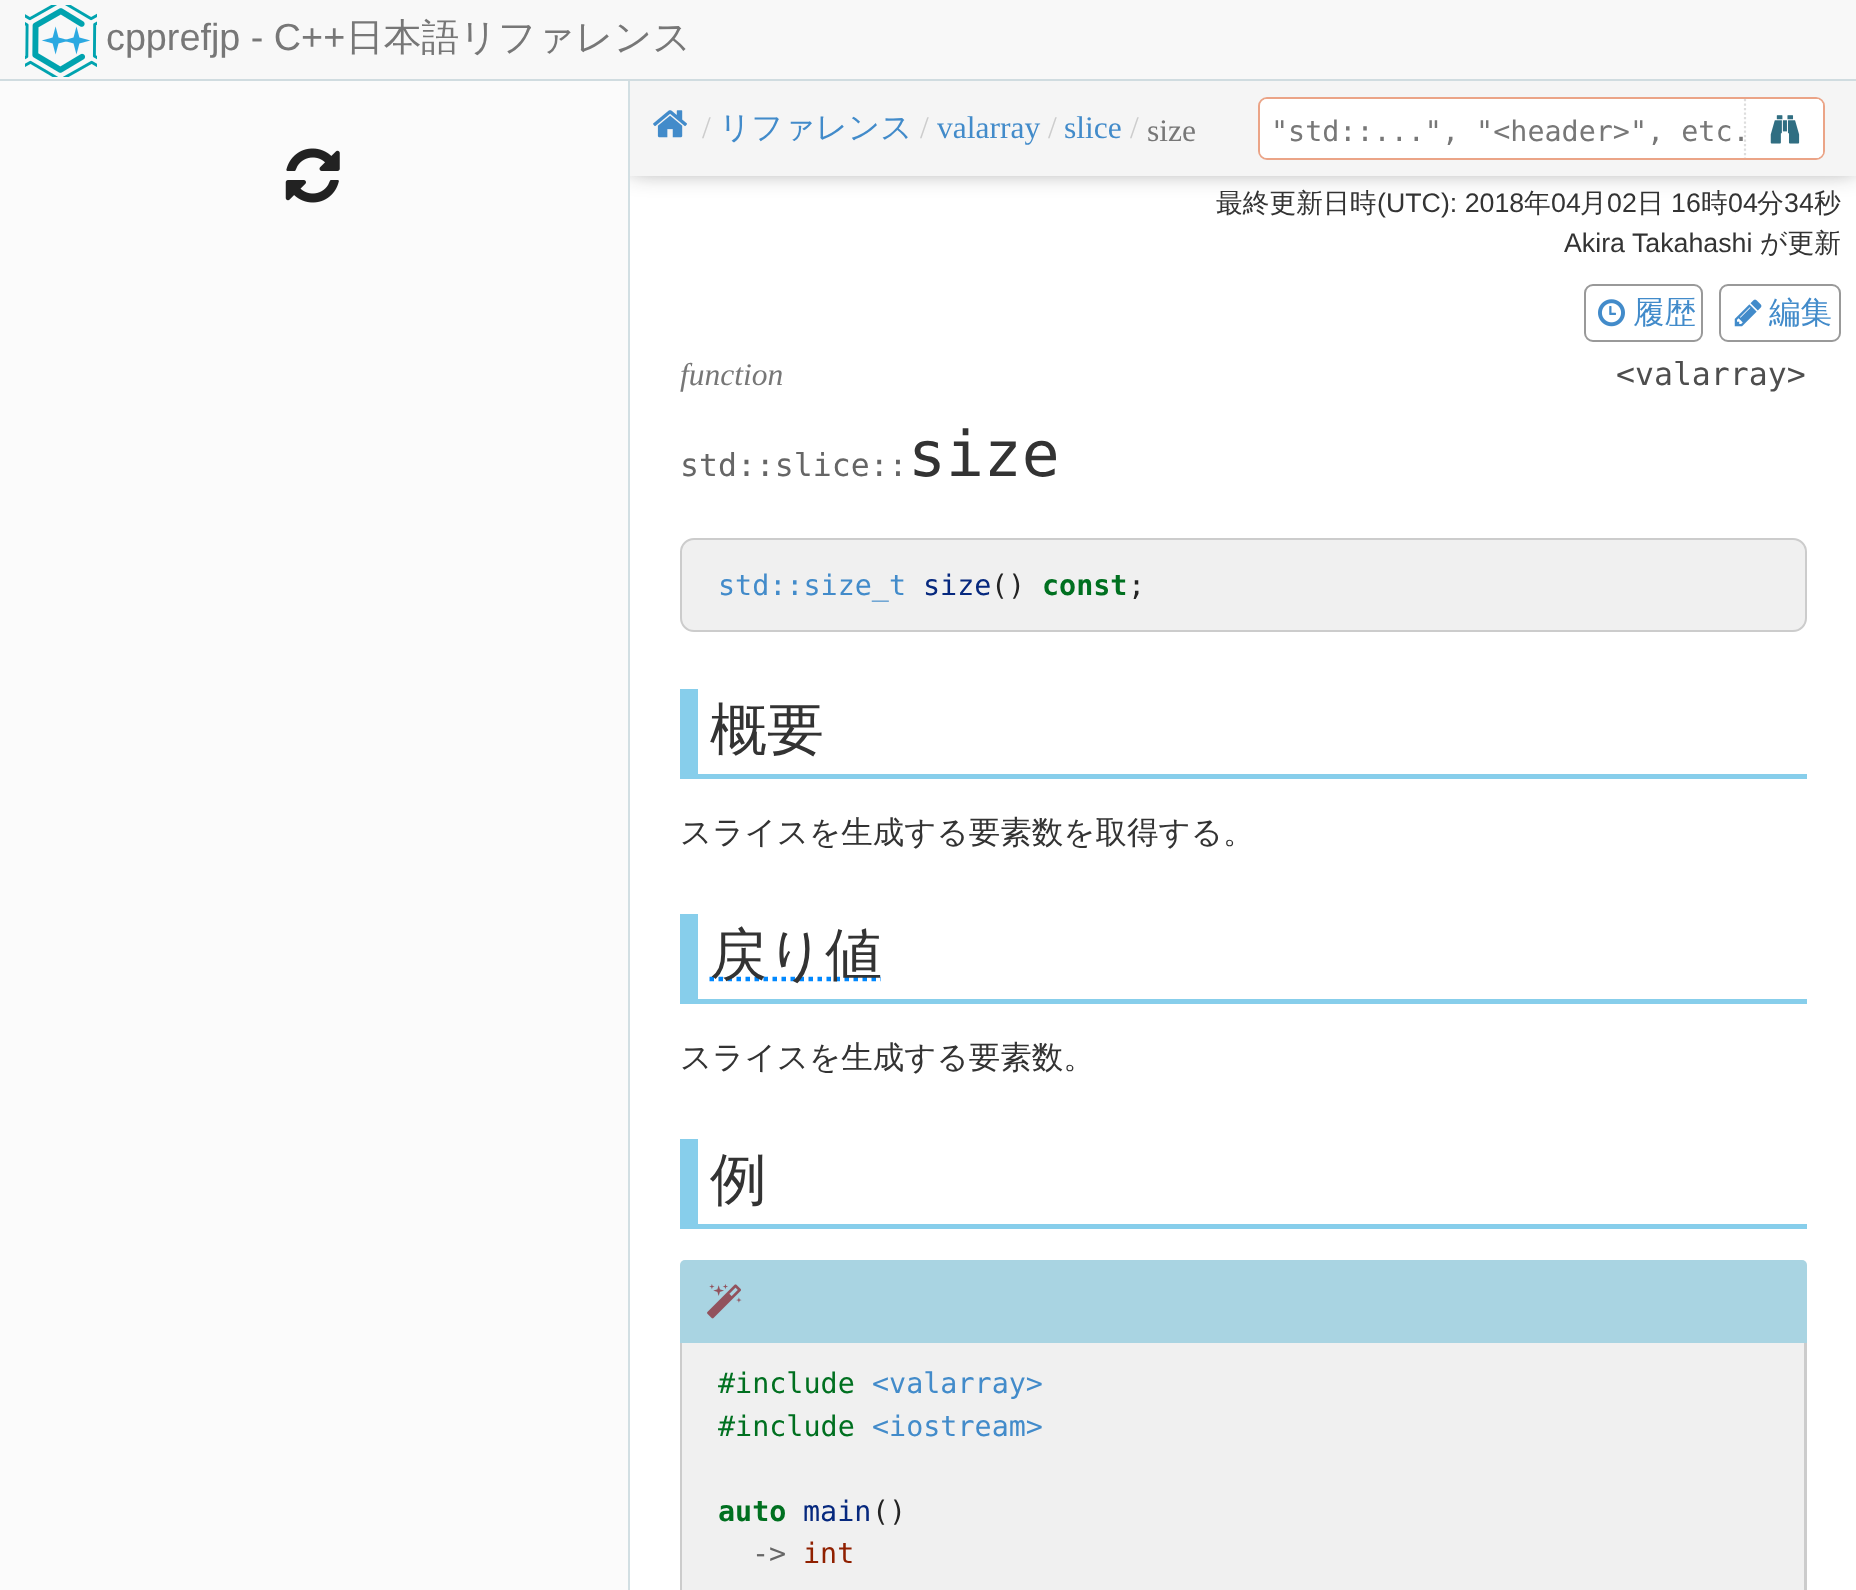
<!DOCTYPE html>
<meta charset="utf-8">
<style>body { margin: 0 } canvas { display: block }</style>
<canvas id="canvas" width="1856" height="1590"></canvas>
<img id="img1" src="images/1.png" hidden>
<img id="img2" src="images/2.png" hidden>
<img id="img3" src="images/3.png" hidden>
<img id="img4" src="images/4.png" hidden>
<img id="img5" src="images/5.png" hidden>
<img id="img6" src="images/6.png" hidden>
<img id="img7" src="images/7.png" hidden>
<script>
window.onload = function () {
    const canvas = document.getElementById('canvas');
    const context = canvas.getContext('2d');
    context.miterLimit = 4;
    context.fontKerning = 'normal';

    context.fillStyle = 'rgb(255, 255, 255)';
    context.fillRect(0, 0, 1856, 1590);
    context.fillStyle = 'rgba(20, 20, 20, 0.6)';
    context.filter = 'blur(13.5px)';
    context.beginPath();
    context.rect(630, 72, 1226, 95);
    context.fill();
    context.filter = 'none';
    context.fillStyle = 'rgb(248, 248, 248)';
    context.fillRect(0, 0, 1856, 79);
    context.fillStyle = 'rgb(208, 220, 224)';
    context.fillRect(0, 79, 1856, 2);
    context.drawImage(document.getElementById('img1'), 25, 5, 72, 72);
    context.fillStyle = 'rgb(251, 251, 251)';
    context.fillRect(0, 81, 628, 1509);
    context.fillStyle = 'rgb(210, 223, 227)';
    context.fillRect(628, 81, 2, 1509);
    context.drawImage(document.getElementById('img2'), 285, 148, 55, 55);
    context.fillStyle = 'rgb(245, 245, 245)';
    context.fillRect(630, 81, 1226, 95);
    context.drawImage(document.getElementById('img3'), 653, 110, 34, 28);
    context.beginPath();
    context.roundRect(1259, 98, 565, 61, 8);
    context.strokeStyle = 'rgb(235, 164, 135)';
    context.lineWidth = 2;
    context.stroke();
    context.fillStyle = 'rgb(255, 255, 255)';
    context.beginPath();
    context.roundRect(1260, 99, 563, 59, 7);
    context.fill();
    context.beginPath();
    context.roundRect(1744, 99, 79, 59, [0, 7, 7, 0]);
    context.fill();
    context.save();
    context.beginPath();
    context.roundRect(1260, 99, 563, 59, 7);
    context.clip();
    context.beginPath();
    context.moveTo(1745, 99);
    context.lineTo(1745, 162);
    context.strokeStyle = 'rgb(221, 221, 221)';
    context.lineWidth = 2.2;
    context.setLineDash([2.25, 2.25]);
    context.stroke();
    context.restore();
    context.drawImage(document.getElementById('img4'), 1770, 115, 30, 29);
    context.beginPath();
    context.roundRect(1585, 285, 117, 56, 8);
    context.strokeStyle = 'rgb(153, 153, 153)';
    context.stroke();
    context.drawImage(document.getElementById('img5'), 1598, 299, 27, 28);
    context.beginPath();
    context.roundRect(1720, 285, 120, 56, 8);
    context.stroke();
    context.drawImage(document.getElementById('img6'), 1734, 299, 28, 28);
    context.fillStyle = 'rgb(240, 240, 240)';
    context.beginPath();
    context.roundRect(681, 539, 1125, 92, 13);
    context.fill();
    context.strokeStyle = 'rgb(204, 204, 204)';
    context.stroke();
    context.fillStyle = 'rgb(135, 206, 235)';
    context.fillRect(698, 774, 1109, 5);
    context.fillRect(680, 689, 18, 90);
    context.fillRect(698, 999, 1109, 5);
    context.fillRect(680, 914, 18, 90);
    context.beginPath();
    context.moveTo(709.5, 979);
    context.lineTo(881, 979);
    context.strokeStyle = 'rgb(0, 136, 255)';
    context.lineWidth = 4.5;
    context.setLineDash([4.5, 4.5]);
    context.stroke();
    context.fillRect(698, 1224, 1109, 5);
    context.fillRect(680, 1139, 18, 90);
    context.fillStyle = 'rgb(169, 212, 226)';
    context.beginPath();
    context.roundRect(680, 1260, 1127, 83, [5, 5, 0, 0]);
    context.fill();
    context.drawImage(document.getElementById('img7'), 707, 1284, 35, 35);
    context.fillStyle = 'rgb(240, 240, 240)';
    context.fillRect(682, 1343, 1122, 247);
    context.fillStyle = 'rgb(204, 204, 204)';
    context.beginPath();
    context.moveTo(680, 1343);
    context.lineTo(1807, 1343);
    context.lineTo(1807, 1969);
    context.bezierCurveTo(1807, 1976, 1801, 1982, 1793, 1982);
    context.lineTo(693, 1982);
    context.bezierCurveTo(686, 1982, 680, 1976, 680, 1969);
    context.closePath();
    context.moveTo(682, 1343);
    context.lineTo(1804, 1343);
    context.lineTo(1804, 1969);
    context.bezierCurveTo(1804, 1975, 1799, 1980, 1793, 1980);
    context.lineTo(693, 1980);
    context.bezierCurveTo(687, 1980, 682, 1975, 682, 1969);
    context.closePath();
    context.fill('evenodd');
    context.font = '37.75px Liberation Sans';
    context.fillStyle = 'rgb(119, 119, 119)';
    context.fillText('cpprefjp - C++', 106, 50);
    context.font = '500 37.75px WenQuanYi Zen Hei';
    context.fillText('日本語リファレンス', 346, 50);
    context.font = '31.5px Liberation Serif';
    context.fillStyle = 'rgb(204, 204, 204)';
    context.fillText('/', 702, 138);
    context.font = '500 31.5px WenQuanYi Zen Hei';
    context.fillStyle = 'rgb(66, 139, 202)';
    context.fillText('リファレンス', 719, 138);
    context.font = '31.5px Liberation Serif';
    context.fillStyle = 'rgb(204, 204, 204)';
    context.fillText('/', 920, 138);
    context.fillStyle = 'rgb(66, 139, 202)';
    context.fillText('valarray', 937, 138);
    context.fillStyle = 'rgb(204, 204, 204)';
    context.fillText('/', 1048, 138);
    context.fillStyle = 'rgb(66, 139, 202)';
    context.fillText('slice', 1064, 138);
    context.fillStyle = 'rgb(204, 204, 204)';
    context.fillText('/', 1130, 138);
    context.fillStyle = 'rgb(119, 119, 119)';
    context.fillText('size', 1147, 141);
    context.font = '28.4px DejaVu Sans Mono';
    context.fillText('"std::...", "<header>", etc.', 1271, 141);
    context.font = '500 26.75px WenQuanYi Zen Hei';
    context.fillStyle = 'rgb(51, 51, 51)';
    context.fillText('最終更新日時', 1216, 212);
    context.font = '26.75px Liberation Sans';
    context.fillText('(UTC): 2018', 1377, 212);
    context.font = '500 26.75px WenQuanYi Zen Hei';
    context.fillText('年', 1524, 212);
    context.font = '26.75px Liberation Sans';
    context.fillText('04', 1551, 212);
    context.font = '500 26.75px WenQuanYi Zen Hei';
    context.fillText('月', 1580, 212);
    context.font = '26.75px Liberation Sans';
    context.fillText('02', 1607, 212);
    context.font = '500 26.75px WenQuanYi Zen Hei';
    context.fillText('日', 1637, 212);
    context.font = '26.75px Liberation Sans';
    context.fillText('16', 1671, 212);
    context.font = '500 26.75px WenQuanYi Zen Hei';
    context.fillText('時', 1701, 212);
    context.font = '26.75px Liberation Sans';
    context.fillText('04', 1728, 212);
    context.font = '500 26.75px WenQuanYi Zen Hei';
    context.fillText('分', 1757, 212);
    context.font = '26.75px Liberation Sans';
    context.fillText('34', 1784, 212);
    context.font = '500 26.75px WenQuanYi Zen Hei';
    context.fillText('秒', 1814, 212);
    context.font = '26.75px Liberation Sans';
    context.fillText('Akira Takahashi', 1564, 252);
    context.font = '500 26.75px WenQuanYi Zen Hei';
    context.fillText('が更新', 1760, 252);
    context.font = '500 31.5px WenQuanYi Zen Hei';
    context.fillStyle = 'rgb(66, 139, 202)';
    context.fillText('履歴', 1633, 323);
    context.fillText('編集', 1769, 323);
    context.font = 'italic 31.5px Liberation Serif';
    context.fillStyle = 'rgb(119, 119, 119)';
    context.fillText('function', 680, 385);
    context.font = '31.5px DejaVu Sans Mono';
    context.fillStyle = 'rgb(78, 78, 78)';
    context.fillText('<valarray>', 1616, 385);
    context.fillStyle = 'rgb(102, 102, 102)';
    context.fillText('std::slice::', 680, 476);
    context.font = '63px DejaVu Sans Mono';
    context.fillStyle = 'rgb(51, 51, 51)';
    context.fillText('size', 908, 476);
    context.font = '28.4px DejaVu Sans Mono';
    context.fillStyle = 'rgb(66, 139, 202)';
    context.fillText('std::size_t', 718, 595);
    context.fillStyle = 'rgb(6, 40, 126)';
    context.fillText('size', 923, 595);
    context.fillStyle = 'rgb(35, 35, 35)';
    context.fillText('()', 991, 595);
    context.font = 'bold 28.4px DejaVu Sans Mono';
    context.fillStyle = 'rgb(0, 112, 32)';
    context.fillText('const', 1042, 595);
    context.font = '28.4px DejaVu Sans Mono';
    context.fillStyle = 'rgb(35, 35, 35)';
    context.fillText(';', 1128, 595);
    context.font = '500 57px WenQuanYi Zen Hei';
    context.fillStyle = 'rgb(51, 51, 51)';
    context.fillText('概要', 710, 749);
    context.font = '500 31.5px WenQuanYi Zen Hei';
    context.fillText('スライスを生成する要素数を取得する。', 680, 843);
    context.font = '500 57px WenQuanYi Zen Hei';
    context.fillText('戻り値', 710, 974);
    context.font = '500 31.5px WenQuanYi Zen Hei';
    context.fillText('スライスを生成する要素数。', 680, 1068);
    context.font = '500 57px WenQuanYi Zen Hei';
    context.fillText('例', 710, 1199);
    context.font = '28.4px DejaVu Sans Mono';
    context.fillStyle = 'rgb(0, 112, 32)';
    context.fillText('#include', 718, 1393);
    context.fillStyle = 'rgb(66, 139, 202)';
    context.fillText('<valarray>', 872, 1393);
    context.fillStyle = 'rgb(0, 112, 32)';
    context.fillText('#include', 718, 1436);
    context.fillStyle = 'rgb(66, 139, 202)';
    context.fillText('<iostream>', 872, 1436);
    context.font = 'bold 28.4px DejaVu Sans Mono';
    context.fillStyle = 'rgb(0, 112, 32)';
    context.fillText('auto', 718, 1521);
    context.font = '28.4px DejaVu Sans Mono';
    context.fillStyle = 'rgb(6, 40, 126)';
    context.fillText('main', 803, 1521);
    context.fillStyle = 'rgb(35, 35, 35)';
    context.fillText('()', 872, 1521);
    context.fillStyle = 'rgb(102, 102, 102)';
    context.fillText('->', 752, 1563);
    context.fillStyle = 'rgb(144, 32, 0)';
    context.fillText('int', 803, 1563);
};
</script>
